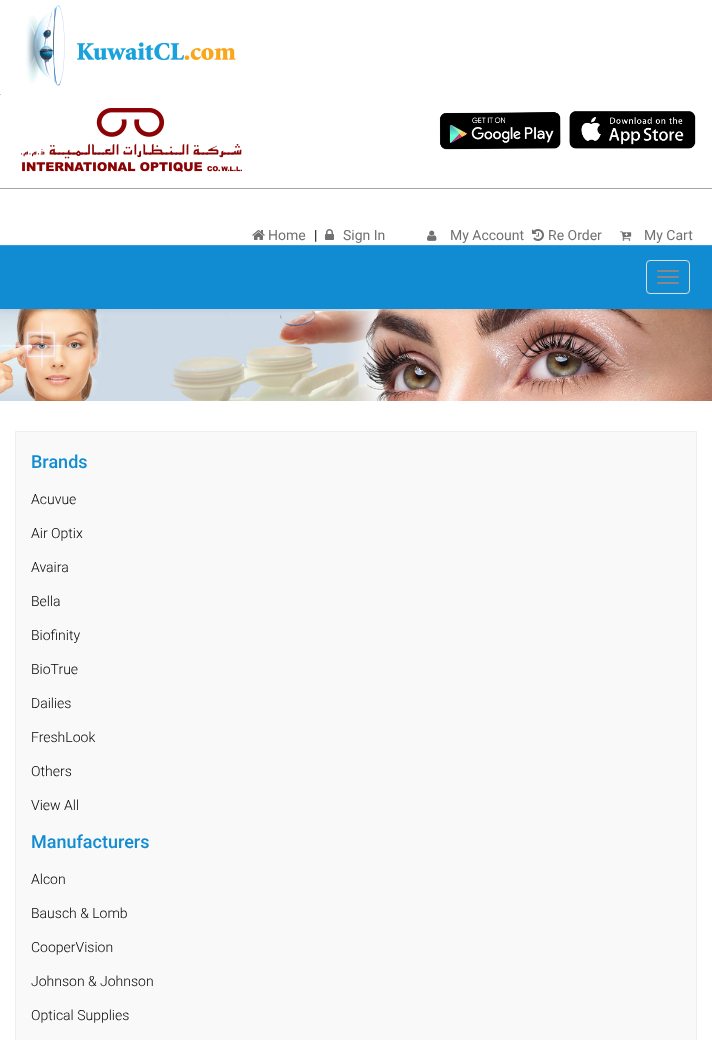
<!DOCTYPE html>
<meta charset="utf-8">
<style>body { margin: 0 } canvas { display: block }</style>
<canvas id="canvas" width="712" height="1040"></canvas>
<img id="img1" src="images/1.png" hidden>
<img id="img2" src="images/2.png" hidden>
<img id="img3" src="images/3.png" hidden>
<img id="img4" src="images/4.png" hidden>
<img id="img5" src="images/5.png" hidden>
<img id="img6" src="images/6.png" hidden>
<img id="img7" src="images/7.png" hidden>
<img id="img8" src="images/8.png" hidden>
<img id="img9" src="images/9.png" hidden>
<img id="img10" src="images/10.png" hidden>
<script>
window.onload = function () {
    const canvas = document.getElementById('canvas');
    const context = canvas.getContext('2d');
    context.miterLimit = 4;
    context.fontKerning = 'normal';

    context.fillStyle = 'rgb(255, 255, 255)';
    context.fillRect(0, 0, 712, 1040);
    context.drawImage(document.getElementById('img1'), 26, 5, 210, 81);
    context.fillStyle = 'rgb(204, 202, 202)';
    context.fillRect(0, 94, 1, 1);
    context.drawImage(document.getElementById('img2'), 21, 108, 221, 64);
    context.drawImage(document.getElementById('img3'), 439, 112, 122, 38);
    context.drawImage(document.getElementById('img4'), 569, 111, 127, 38);
    context.fillStyle = 'rgb(165, 165, 165)';
    context.fillRect(0, 188, 712, 1);
    context.drawImage(document.getElementById('img5'), 252, 230, 13, 10);
    context.drawImage(document.getElementById('img6'), 325, 229, 9, 11);
    context.drawImage(document.getElementById('img7'), 427, 230, 10, 11);
    context.drawImage(document.getElementById('img8'), 532, 229, 12, 12);
    context.drawImage(document.getElementById('img9'), 620, 231, 12, 10);
    context.drawImage(document.getElementById('img10'), 0, 309, 712, 92);
    context.fillStyle = 'rgba(0, 0, 0, 0.07)';
    context.filter = 'blur(2.5px)';
    context.beginPath();
    context.rect(0, 246, 712, 64);
    context.fill();
    context.filter = 'none';
    context.fillStyle = 'rgb(17, 140, 210)';
    context.fillRect(0, 246, 712, 63);
    context.fillStyle = 'rgb(53, 157, 217)';
    context.fillRect(0, 245, 712, 1);
    context.beginPath();
    context.roundRect(646.5, 260.5, 43, 33, 3.5);
    context.strokeStyle = 'rgb(221, 221, 221)';
    context.stroke();
    context.fillStyle = 'rgb(136, 136, 136)';
    context.beginPath();
    context.roundRect(657, 270, 22, 2, 1);
    context.fill();
    context.beginPath();
    context.roundRect(657, 276, 22, 2, 1);
    context.fill();
    context.beginPath();
    context.roundRect(657, 282, 22, 2, 1);
    context.fill();
    context.fillStyle = 'rgb(249, 249, 249)';
    context.beginPath();
    context.rect(15.5, 431.5, 681, 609);
    context.fill();
    context.strokeStyle = 'rgb(238, 238, 238)';
    context.stroke();
    context.font = '14px Roboto';
    context.fillStyle = 'rgb(113, 113, 113)';
    context.fillText('Home', 268, 240);
    context.fillStyle = 'rgb(0, 0, 0)';
    context.fillText('|', 314, 240);
    context.fillStyle = 'rgb(113, 113, 113)';
    context.fillText('Sign In', 343, 240);
    context.fillText('My Account', 450, 240);
    context.fillText('Re Order', 548, 240);
    context.fillText('My Cart', 644, 240);
    context.font = '500 18px Roboto';
    context.fillStyle = 'rgb(17, 140, 210)';
    context.fillText('Brands', 31, 468);
    context.font = '300 14px Roboto';
    context.fillStyle = 'rgb(0, 0, 0)';
    context.fillText('Acuvue', 31, 504);
    context.fillText('Air Optix', 31, 538);
    context.fillText('Avaira', 31, 572);
    context.fillText('Bella', 31, 606);
    context.fillText('Biofinity', 31, 640);
    context.fillText('BioTrue', 31, 674);
    context.fillText('Dailies', 31, 708);
    context.fillText('FreshLook', 31, 742);
    context.fillText('Others', 31, 776);
    context.fillText('View All', 31, 810);
    context.font = '500 18px Roboto';
    context.fillStyle = 'rgb(17, 140, 210)';
    context.fillText('Manufacturers', 31, 848);
    context.font = '300 14px Roboto';
    context.fillStyle = 'rgb(0, 0, 0)';
    context.fillText('Alcon', 31, 884);
    context.fillText('Bausch & Lomb', 31, 918);
    context.fillText('CooperVision', 31, 952);
    context.fillText('Johnson & Johnson', 31, 986);
    context.fillText('Optical Supplies', 31, 1020);
};
</script>
